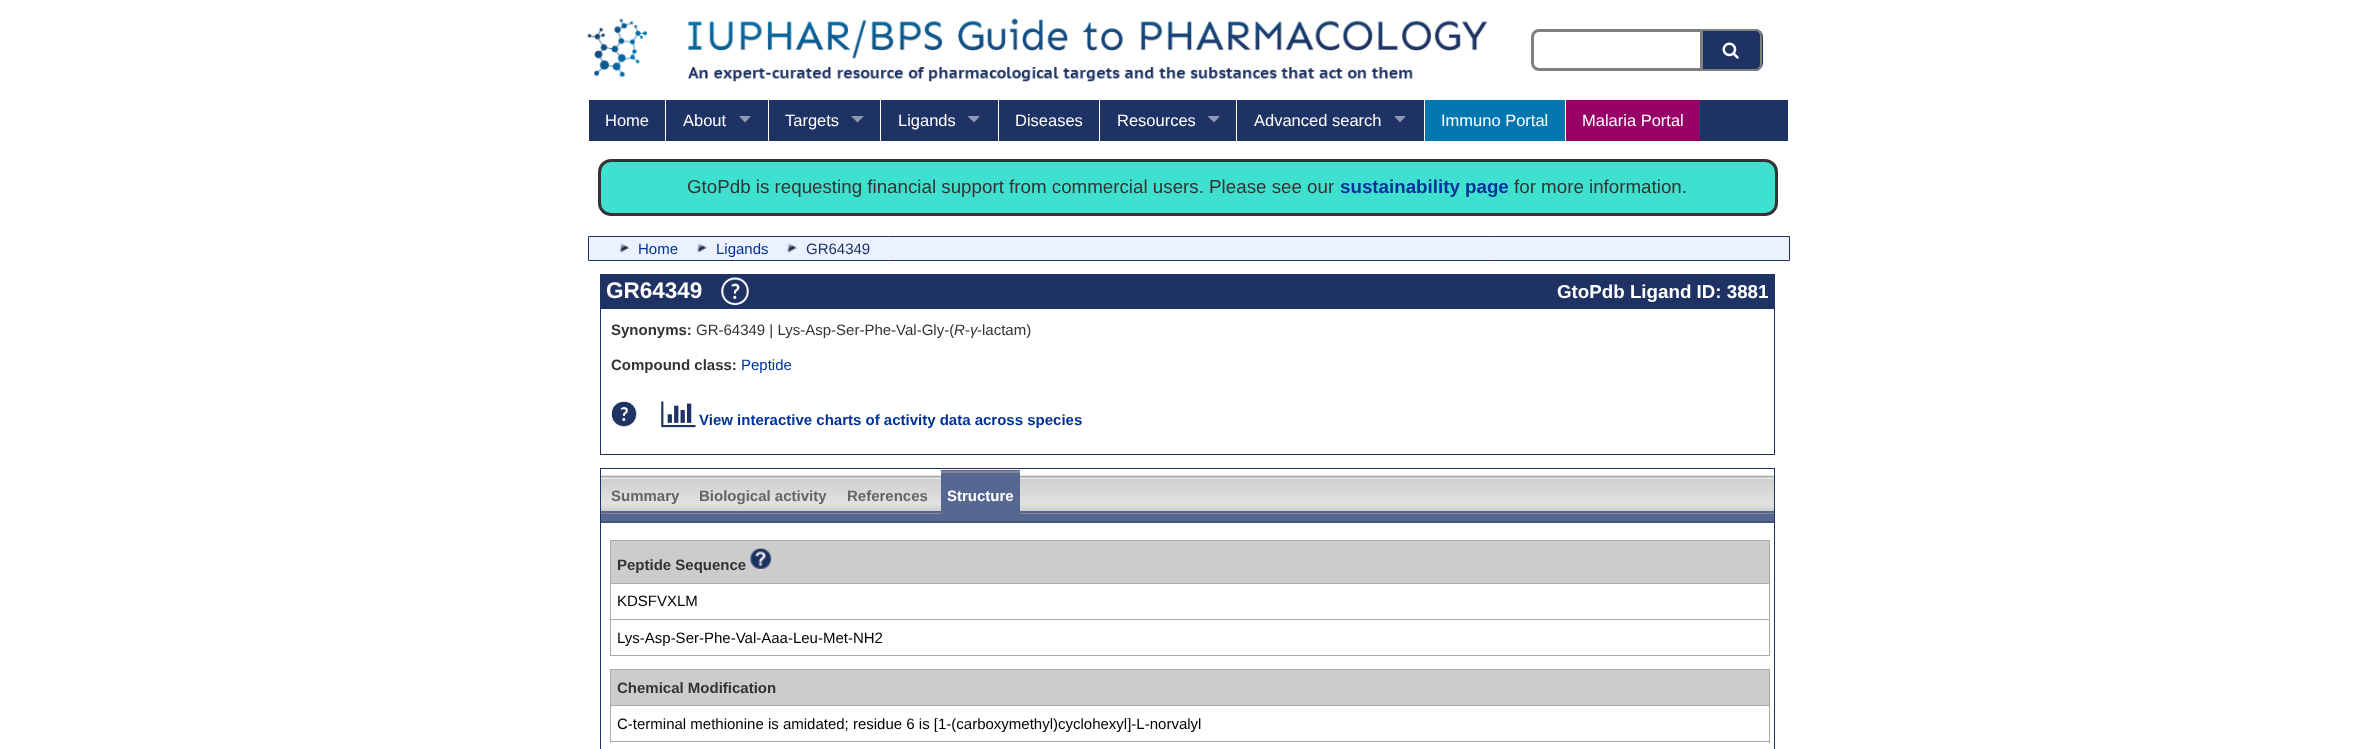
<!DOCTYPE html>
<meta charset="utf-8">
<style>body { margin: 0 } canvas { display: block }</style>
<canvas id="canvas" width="2373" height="749"></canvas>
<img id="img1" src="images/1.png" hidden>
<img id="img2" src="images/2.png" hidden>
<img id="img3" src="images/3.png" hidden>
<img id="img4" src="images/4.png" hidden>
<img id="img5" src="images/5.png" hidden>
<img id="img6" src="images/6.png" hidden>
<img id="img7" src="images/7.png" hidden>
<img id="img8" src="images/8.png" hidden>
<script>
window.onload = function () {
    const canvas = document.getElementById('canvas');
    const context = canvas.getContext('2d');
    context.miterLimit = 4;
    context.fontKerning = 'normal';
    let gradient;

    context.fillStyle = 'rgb(255, 255, 255)';
    context.fillRect(0, 0, 2373, 749);
    context.drawImage(document.getElementById('img1'), 587, 18, 901, 64);
    context.beginPath();
    context.roundRect(1532.5, 30.5, 169, 39, [6.5, 0, 0, 6.5]);
    context.strokeStyle = 'rgb(128, 128, 128)';
    context.lineWidth = 3;
    context.stroke();
    context.fillStyle = 'rgb(30, 51, 99)';
    context.beginPath();
    context.roundRect(1703, 29, 60, 42, [0, 8, 8, 0]);
    context.fill();
    context.fillStyle = 'rgb(128, 128, 128)';
    context.beginPath();
    context.moveTo(1702, 29);
    context.lineTo(1755, 29);
    context.bezierCurveTo(1759, 29, 1762, 32, 1762, 36);
    context.lineTo(1762, 64);
    context.bezierCurveTo(1762, 68, 1759, 71, 1755, 71);
    context.lineTo(1702, 71);
    context.closePath();
    context.moveTo(1702, 31);
    context.lineTo(1755, 31);
    context.bezierCurveTo(1758, 31, 1760, 33, 1760, 36);
    context.lineTo(1760, 64);
    context.bezierCurveTo(1760, 67, 1758, 69, 1755, 69);
    context.lineTo(1702, 69);
    context.closePath();
    context.fill('evenodd');
    context.drawImage(document.getElementById('img2'), 1722, 42, 17, 17);
    context.fillStyle = 'rgb(30, 51, 99)';
    context.fillRect(589, 100, 1199, 41);
    context.fillStyle = 'rgb(255, 255, 255)';
    context.fillRect(665, 100, 1, 41);
    context.fillStyle = 'rgb(143, 153, 177)';
    context.beginPath();
    context.moveTo(739, 116);
    context.lineTo(751, 116);
    context.lineTo(745, 122.5);
    context.closePath();
    context.fill();
    context.fillStyle = 'rgb(255, 255, 255)';
    context.fillRect(768, 100, 1, 41);
    context.fillStyle = 'rgb(143, 153, 177)';
    context.beginPath();
    context.moveTo(851, 116);
    context.lineTo(864, 116);
    context.lineTo(857.5, 122.5);
    context.closePath();
    context.fill();
    context.fillStyle = 'rgb(255, 255, 255)';
    context.fillRect(880, 100, 1, 41);
    context.fillStyle = 'rgb(143, 153, 177)';
    context.beginPath();
    context.moveTo(967.5, 116);
    context.lineTo(980, 116);
    context.lineTo(974, 122.5);
    context.closePath();
    context.fill();
    context.fillStyle = 'rgb(255, 255, 255)';
    context.fillRect(998, 100, 1, 41);
    context.fillRect(1099, 100, 1, 41);
    context.fillStyle = 'rgb(143, 153, 177)';
    context.beginPath();
    context.moveTo(1207.5, 116);
    context.lineTo(1220, 116);
    context.lineTo(1214, 122.5);
    context.closePath();
    context.fill();
    context.fillStyle = 'rgb(255, 255, 255)';
    context.fillRect(1236, 100, 1, 41);
    context.fillStyle = 'rgb(143, 153, 177)';
    context.beginPath();
    context.moveTo(1394, 116);
    context.lineTo(1406, 116);
    context.lineTo(1400, 122.5);
    context.closePath();
    context.fill();
    context.fillStyle = 'rgb(1, 118, 175)';
    context.fillRect(1425, 100, 140, 41);
    context.fillStyle = 'rgb(255, 255, 255)';
    context.fillRect(1424, 100, 1, 41);
    context.fillStyle = 'rgb(153, 0, 102)';
    context.fillRect(1566, 100, 134, 41);
    context.fillStyle = 'rgb(255, 255, 255)';
    context.fillRect(1565, 100, 1, 41);
    context.fillStyle = 'rgb(64, 224, 208)';
    context.beginPath();
    context.roundRect(599.5, 160.5, 1177, 54, 11.5);
    context.fill();
    context.strokeStyle = 'rgb(51, 51, 51)';
    context.stroke();
    context.fillStyle = 'rgb(235, 241, 255)';
    context.beginPath();
    context.rect(588.5, 236.5, 1201, 24);
    context.fill();
    context.strokeStyle = 'rgb(30, 51, 99)';
    context.lineWidth = 1;
    context.stroke();
    context.drawImage(document.getElementById('img3'), 619, 243, 11, 10);
    context.drawImage(document.getElementById('img4'), 697, 243, 11, 10);
    context.drawImage(document.getElementById('img4'), 787, 243, 11, 10);
    context.fillStyle = 'rgb(30, 51, 99)';
    context.fillRect(600, 274, 1175, 34);
    context.drawImage(document.getElementById('img5'), 721, 277, 28, 28);
    context.strokeRect(600.5, 308.5, 1174, 146);
    context.drawImage(document.getElementById('img6'), 611, 401, 26, 26);
    context.drawImage(document.getElementById('img7'), 661, 401, 35, 27);
    context.strokeRect(600.5, 468.5, 1174, 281);
    context.fillStyle = 'rgba(0, 0, 0, 0.1)';
    context.filter = 'blur(0.5px)';
    context.beginPath();
    context.rect(601, 475, 1173, 35);
    context.fill();
    context.filter = 'none';
    context.fillStyle = 'rgb(69, 83, 117)';
    context.beginPath();
    context.moveTo(601, 488);
    context.lineTo(601, 523);
    context.lineTo(1774, 523);
    context.lineTo(1774, 488);
    context.lineTo(1774, 511);
    context.lineTo(601, 511);
    context.closePath();
    context.fill();
    context.fillStyle = 'rgb(86, 104, 146)';
    context.beginPath();
    context.moveTo(601, 486);
    context.lineTo(601, 521);
    context.lineTo(1774, 521);
    context.lineTo(1774, 486);
    context.lineTo(1774, 511);
    context.lineTo(601, 511);
    context.closePath();
    context.fill();
    context.fillStyle = 'rgb(133, 135, 140)';
    context.beginPath();
    context.moveTo(601, 479);
    context.lineTo(601, 514);
    context.lineTo(1774, 514);
    context.lineTo(1774, 479);
    context.lineTo(1774, 511);
    context.lineTo(601, 511);
    context.closePath();
    context.fill();
    context.fillStyle = 'rgb(86, 104, 146)';
    context.beginPath();
    context.moveTo(601, 478);
    context.lineTo(601, 513);
    context.lineTo(1774, 513);
    context.lineTo(1774, 478);
    context.lineTo(1774, 511);
    context.lineTo(601, 511);
    context.closePath();
    context.fill();
    gradient = context.createLinearGradient(1188, 444, 1188, 478);
    gradient.addColorStop(0, 'rgb(205, 205, 205)');
    gradient.addColorStop(0.8, 'rgb(226, 226, 226)');
    gradient.addColorStop(1, 'rgb(205, 205, 205)');
    context.fillStyle = gradient;
    context.fillRect(601, 477, 1173, 1);
    gradient = context.createLinearGradient(1188, 477, 1188, 511);
    gradient.addColorStop(0, 'rgb(205, 205, 205)');
    gradient.addColorStop(0.8, 'rgb(226, 226, 226)');
    gradient.addColorStop(1, 'rgb(205, 205, 205)');
    context.fillStyle = gradient;
    context.fillRect(601, 479, 1173, 32);
    context.fillStyle = 'rgb(233, 233, 233)';
    context.fillRect(601, 478, 1173, 1);
    context.fillStyle = 'rgb(168, 168, 168)';
    context.fillRect(601, 476, 1173, 1);
    context.fillStyle = 'rgb(86, 104, 146)';
    context.beginPath();
    context.moveTo(941, 470);
    context.lineTo(941, 508);
    context.lineTo(941, 478);
    context.lineTo(1020, 478);
    context.lineTo(1020, 470);
    context.closePath();
    context.fill();
    context.fillStyle = 'rgb(133, 135, 140)';
    context.beginPath();
    context.moveTo(941, 471);
    context.lineTo(941, 509);
    context.lineTo(941, 478);
    context.lineTo(1020, 478);
    context.lineTo(1020, 471);
    context.closePath();
    context.fill();
    context.fillStyle = 'rgb(86, 104, 146)';
    context.beginPath();
    context.moveTo(941, 473);
    context.lineTo(941, 510);
    context.lineTo(941, 478);
    context.lineTo(1020, 478);
    context.lineTo(1020, 473);
    context.closePath();
    context.fill();
    context.fillRect(941, 478, 79, 36);
    context.fillStyle = 'rgb(204, 204, 204)';
    context.fillRect(611, 541, 1158, 42);
    context.fillStyle = 'rgb(170, 170, 170)';
    context.fillRect(610, 540, 1160, 1);
    context.fillRect(610, 583, 1160, 1);
    context.fillRect(610, 619, 1160, 1);
    context.fillRect(1769, 619, 1, 37);
    context.fillRect(1769, 583, 1, 37);
    context.fillRect(1769, 540, 1, 44);
    context.fillRect(610, 655, 1160, 1);
    context.fillRect(610, 619, 1, 37);
    context.fillRect(610, 583, 1, 37);
    context.fillRect(610, 540, 1, 44);
    context.drawImage(document.getElementById('img8'), 750, 548, 22, 22);
    context.fillStyle = 'rgb(204, 204, 204)';
    context.fillRect(611, 670, 1158, 35);
    context.fillStyle = 'rgb(170, 170, 170)';
    context.fillRect(610, 669, 1160, 1);
    context.fillRect(610, 705, 1160, 1);
    context.fillRect(1769, 705, 1, 38);
    context.fillRect(1769, 669, 1, 37);
    context.fillRect(610, 741, 1160, 1);
    context.fillRect(610, 705, 1, 38);
    context.fillRect(610, 669, 1, 37);
    context.font = '16.5px Liberation Sans';
    context.fillStyle = 'rgb(255, 255, 255)';
    context.fillText('Home', 605, 126);
    context.fillText('About', 683, 126);
    context.fillText('Targets', 785, 126);
    context.fillText('Ligands', 898, 126);
    context.fillText('Diseases', 1015, 126);
    context.fillText('Resources', 1117, 126);
    context.fillText('Advanced search', 1254, 126);
    context.fillText('Immuno Portal', 1441, 126);
    context.fillText('Malaria Portal', 1582, 126);
    context.font = '18.75px Liberation Sans';
    context.fillStyle = 'rgb(51, 51, 51)';
    context.fillText('GtoPdb is requesting financial support from commercial users. Please see our', 687, 193);
    context.font = 'bold 18.75px Liberation Sans';
    context.fillStyle = 'rgb(0, 51, 153)';
    context.fillText('sustainability page', 1340, 193);
    context.font = '18.75px Liberation Sans';
    context.fillStyle = 'rgb(51, 51, 51)';
    context.fillText('for more information.', 1514, 193);
    context.font = '15px Liberation Sans';
    context.fillStyle = 'rgb(0, 51, 153)';
    context.fillText('Home', 638, 254);
    context.fillText('Ligands', 716, 254);
    context.fillStyle = 'rgb(30, 51, 99)';
    context.fillText('GR64349', 806, 254);
    context.font = 'bold 22.5px Liberation Sans';
    context.fillStyle = 'rgb(255, 255, 255)';
    context.fillText('GR64349', 606, 298);
    context.font = 'bold 18.75px Liberation Sans';
    context.fillText('GtoPdb Ligand ID: 3881', 1557, 298);
    context.font = 'bold 15px Liberation Sans';
    context.fillStyle = 'rgb(51, 51, 51)';
    context.fillText('Synonyms:', 611, 335);
    context.font = '15px Liberation Sans';
    context.fillText('GR-64349 | Lys-Asp-Ser-Phe-Val-Gly-(', 696, 335);
    context.font = 'italic 15px Liberation Sans';
    context.fillText('R', 954, 335);
    context.font = '15px Liberation Sans';
    context.fillText('-', 965, 335);
    context.font = 'italic 15px Liberation Sans';
    context.fillText('γ', 970, 335);
    context.font = '15px Liberation Sans';
    context.fillText('-lactam)', 977, 335);
    context.font = 'bold 15px Liberation Sans';
    context.fillText('Compound class:', 611, 370);
    context.font = '15px Liberation Sans';
    context.fillStyle = 'rgb(0, 51, 153)';
    context.fillText('Peptide', 741, 370);
    context.font = 'bold 15px Liberation Sans';
    context.fillText('View interactive charts of activity data across species', 699, 425);
    context.fillStyle = 'rgb(102, 102, 102)';
    context.fillText('Summary', 611, 501);
    context.fillText('Biological activity', 699, 501);
    context.fillText('References', 847, 501);
    context.fillStyle = 'rgb(255, 255, 255)';
    context.fillText('Structure', 947, 501);
    context.fillStyle = 'rgb(51, 51, 51)';
    context.fillText('Peptide Sequence', 617, 570);
    context.font = '15px Liberation Sans';
    context.fillStyle = 'rgb(0, 0, 0)';
    context.fillText('KDSFVXLM', 617, 606);
    context.fillText('Lys-Asp-Ser-Phe-Val-Aaa-Leu-Met-NH2', 617, 643);
    context.font = 'bold 15px Liberation Sans';
    context.fillStyle = 'rgb(51, 51, 51)';
    context.fillText('Chemical Modification', 617, 693);
    context.font = '15px Liberation Sans';
    context.fillStyle = 'rgb(0, 0, 0)';
    context.fillText('C-terminal methionine is amidated; residue 6 is [1-(carboxymethyl)cyclohexyl]-L-norvalyl', 617, 729);
};
</script>
